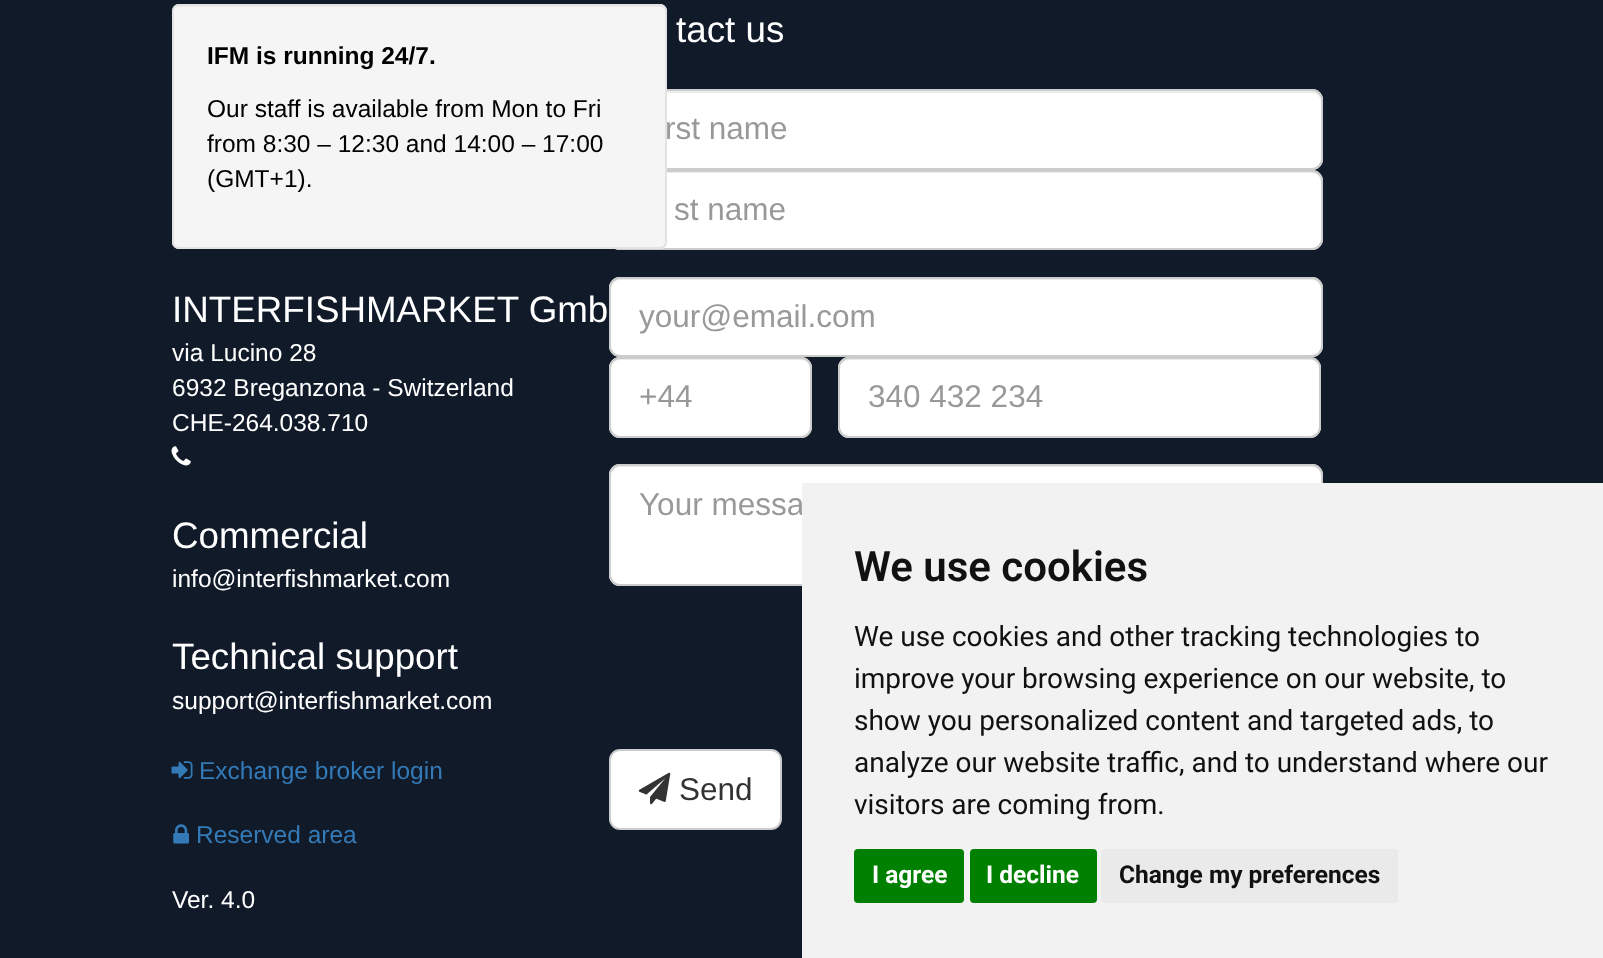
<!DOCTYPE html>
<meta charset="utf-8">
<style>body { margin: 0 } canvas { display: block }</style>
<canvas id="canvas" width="1603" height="958"></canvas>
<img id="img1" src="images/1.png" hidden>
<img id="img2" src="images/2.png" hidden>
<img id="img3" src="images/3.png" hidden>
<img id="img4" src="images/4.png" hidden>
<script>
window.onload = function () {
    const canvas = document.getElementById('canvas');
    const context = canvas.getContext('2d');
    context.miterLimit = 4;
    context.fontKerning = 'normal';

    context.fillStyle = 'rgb(17, 26, 41)';
    context.fillRect(0, 0, 1603, 958);
    context.fillStyle = 'rgb(255, 255, 255)';
    context.beginPath();
    context.roundRect(609, 89, 714, 81, 11);
    context.fill();
    context.fillStyle = 'rgb(236, 236, 236)';
    context.beginPath();
    context.moveTo(620, 93);
    context.lineTo(1312, 93);
    context.bezierCurveTo(1317, 93, 1321, 97, 1321, 102);
    context.lineTo(1321, 100);
    context.bezierCurveTo(1321, 95, 1317, 91, 1312, 91);
    context.lineTo(620, 91);
    context.bezierCurveTo(615, 91, 611, 95, 611, 100);
    context.lineTo(611, 102);
    context.bezierCurveTo(611, 97, 615, 93, 620, 93);
    context.closePath();
    context.fill();
    context.beginPath();
    context.roundRect(610, 90, 712, 79, 10);
    context.strokeStyle = 'rgb(204, 204, 204)';
    context.lineWidth = 2;
    context.stroke();
    context.fillStyle = 'rgb(255, 255, 255)';
    context.beginPath();
    context.roundRect(609, 170, 714, 80, 11);
    context.fill();
    context.fillStyle = 'rgb(236, 236, 236)';
    context.beginPath();
    context.moveTo(620, 173);
    context.lineTo(1312, 173);
    context.bezierCurveTo(1317, 173, 1321, 177, 1321, 182);
    context.bezierCurveTo(1321, 177, 1318, 172, 1312, 172);
    context.lineTo(620, 172);
    context.bezierCurveTo(614, 172, 611, 177, 611, 182);
    context.bezierCurveTo(611, 177, 615, 173, 620, 173);
    context.closePath();
    context.fill();
    context.beginPath();
    context.roundRect(610, 171, 712, 78, 10);
    context.stroke();
    context.fillStyle = 'rgb(245, 245, 245)';
    context.beginPath();
    context.roundRect(172, 4, 495, 245, 7);
    context.fill();
    context.fillStyle = 'rgb(233, 233, 233)';
    context.beginPath();
    context.moveTo(178, 7);
    context.lineTo(660, 7);
    context.bezierCurveTo(663, 7, 665, 9, 665, 12);
    context.lineTo(665, 10);
    context.bezierCurveTo(665, 7, 663, 5, 660, 5);
    context.lineTo(178, 5);
    context.bezierCurveTo(175, 5, 173, 7, 173, 10);
    context.lineTo(173, 12);
    context.bezierCurveTo(173, 9, 176, 7, 178, 7);
    context.closePath();
    context.fill();
    context.beginPath();
    context.roundRect(173, 5, 493, 243, 6);
    context.strokeStyle = 'rgb(227, 227, 227)';
    context.stroke();
    context.drawImage(document.getElementById('img1'), 171, 446, 20, 20);
    context.drawImage(document.getElementById('img2'), 171, 761, 22, 18);
    context.drawImage(document.getElementById('img3'), 173, 824, 16, 20);
    context.fillStyle = 'rgb(255, 255, 255)';
    context.beginPath();
    context.roundRect(609, 277, 714, 80, 11);
    context.fill();
    context.fillStyle = 'rgb(236, 236, 236)';
    context.beginPath();
    context.moveTo(620, 280);
    context.lineTo(1312, 280);
    context.bezierCurveTo(1317, 280, 1321, 284, 1321, 289);
    context.lineTo(1321, 287);
    context.bezierCurveTo(1321, 282, 1317, 278, 1312, 278);
    context.lineTo(620, 278);
    context.bezierCurveTo(615, 278, 611, 282, 611, 287);
    context.lineTo(611, 289);
    context.bezierCurveTo(611, 284, 615, 280, 620, 280);
    context.closePath();
    context.fill();
    context.beginPath();
    context.roundRect(610, 278, 712, 78, 10);
    context.strokeStyle = 'rgb(204, 204, 204)';
    context.stroke();
    context.fillStyle = 'rgb(255, 255, 255)';
    context.beginPath();
    context.roundRect(609, 357, 203, 81, 11);
    context.fill();
    context.fillStyle = 'rgb(236, 236, 236)';
    context.beginPath();
    context.moveTo(620, 360);
    context.lineTo(802, 360);
    context.bezierCurveTo(806, 360, 810, 364, 810, 369);
    context.lineTo(810, 368);
    context.bezierCurveTo(810, 363, 806, 359, 801, 359);
    context.lineTo(620, 359);
    context.bezierCurveTo(615, 359, 611, 363, 611, 368);
    context.lineTo(611, 369);
    context.bezierCurveTo(611, 364, 615, 360, 620, 360);
    context.closePath();
    context.fill();
    context.beginPath();
    context.roundRect(610, 358, 201, 79, 10);
    context.stroke();
    context.fillStyle = 'rgb(255, 255, 255)';
    context.beginPath();
    context.roundRect(838, 357, 483, 81, 11);
    context.fill();
    context.fillStyle = 'rgb(236, 236, 236)';
    context.beginPath();
    context.moveTo(849, 360);
    context.lineTo(1311, 360);
    context.bezierCurveTo(1316, 360, 1320, 364, 1320, 369);
    context.bezierCurveTo(1320, 364, 1317, 359, 1311, 359);
    context.lineTo(849, 359);
    context.bezierCurveTo(843, 359, 840, 364, 840, 369);
    context.bezierCurveTo(840, 364, 844, 360, 849, 360);
    context.closePath();
    context.fill();
    context.beginPath();
    context.roundRect(839, 358, 481, 79, 10);
    context.stroke();
    context.fillStyle = 'rgb(255, 255, 255)';
    context.beginPath();
    context.roundRect(609, 464, 714, 122, 11);
    context.fill();
    context.fillStyle = 'rgb(236, 236, 236)';
    context.beginPath();
    context.moveTo(620, 467);
    context.lineTo(1312, 467);
    context.bezierCurveTo(1317, 467, 1321, 471, 1321, 476);
    context.bezierCurveTo(1321, 471, 1318, 466, 1312, 466);
    context.lineTo(620, 466);
    context.bezierCurveTo(614, 466, 611, 471, 611, 476);
    context.bezierCurveTo(611, 471, 615, 467, 620, 467);
    context.closePath();
    context.fill();
    context.beginPath();
    context.roundRect(610, 465, 712, 120, 10);
    context.stroke();
    context.fillStyle = 'rgb(255, 255, 255)';
    context.beginPath();
    context.roundRect(610, 750, 171, 79, 10);
    context.fill();
    context.stroke();
    context.drawImage(document.getElementById('img4'), 638, 772, 33, 33);
    context.font = 'bold 24.5px Liberation Sans';
    context.fillStyle = 'rgb(0, 0, 0)';
    context.fillText('IFM is running 24/7.', 207, 64);
    context.font = '24.5px Liberation Sans';
    context.fillText('Our staff is available from Mon to Fri', 207, 117);
    context.fillText('from 8:30 – 12:30 and 14:00 – 17:00', 207, 152);
    context.fillText('(GMT+1).', 207, 187);
    context.font = '36.75px Liberation Sans';
    context.fillStyle = 'rgb(255, 255, 255)';
    context.fillText('INTERFISHMARKET Gmb', 172, 322);
    context.font = '24.5px Liberation Sans';
    context.fillText('via Lucino 28', 172, 361);
    context.fillText('6932 Breganzona - Switzerland', 172, 396);
    context.fillText('CHE-264.038.710', 172, 431);
    context.font = '36.75px Liberation Sans';
    context.fillText('Commercial', 172, 548);
    context.font = '24.5px Liberation Sans';
    context.fillText('info@interfishmarket.com', 172, 587);
    context.font = '36.75px Liberation Sans';
    context.fillText('Technical support', 172, 669);
    context.font = '24.5px Liberation Sans';
    context.fillText('support@interfishmarket.com', 172, 709);
    context.fillStyle = 'rgb(51, 122, 183)';
    context.fillText('Exchange broker login', 199, 779);
    context.fillText('Reserved area', 196, 843);
    context.fillStyle = 'rgb(255, 255, 255)';
    context.fillText('Ver. 4.0', 172, 908);
    context.font = '36.75px Liberation Sans';
    context.fillText('tact us', 676, 42);
    context.font = '31.5px Liberation Sans';
    context.fillStyle = 'rgb(153, 153, 153)';
    context.fillText('rst name', 665, 139);
    context.fillText('st name', 674, 220);
    context.fillText('your@email.com', 639, 327);
    context.fillText('+44', 639, 407);
    context.fillText('340 432 234', 868, 407);
    context.fillText('Your messa', 639, 515);
    context.fillStyle = 'rgb(51, 51, 51)';
    context.fillText('Send', 679, 800);
    context.fillStyle = 'rgb(242, 242, 242)';
    context.fillRect(802, 483, 801, 475);
    context.font = '600 42px Roboto';
    context.fillStyle = 'rgb(17, 17, 17)';
    context.fillText('We use cookies', 854, 581);
    context.font = '28px Roboto';
    context.fillText('We use cookies and other tracking technologies to', 854, 646);
    context.fillText('improve your browsing experience on our website, to', 854, 688);
    context.fillText('show you personalized content and targeted ads, to', 854, 730);
    context.fillText('analyze our website traffic, and to understand where our', 854, 772);
    context.fillText('visitors are coming from.', 854, 814);
    context.fillStyle = 'rgb(0, 128, 0)';
    context.beginPath();
    context.roundRect(854, 849, 110, 54, 4);
    context.fill();
    context.font = 'bold 24.5px Roboto';
    context.fillStyle = 'rgb(255, 255, 255)';
    context.fillText('I agree', 872, 883);
    context.fillStyle = 'rgb(0, 128, 0)';
    context.beginPath();
    context.roundRect(970, 849, 127, 54, 4);
    context.fill();
    context.fillStyle = 'rgb(255, 255, 255)';
    context.fillText('I decline', 986, 883);
    context.fillStyle = 'rgb(234, 234, 234)';
    context.beginPath();
    context.roundRect(1101, 849, 297, 54, 4);
    context.fill();
    context.fillStyle = 'rgb(17, 17, 17)';
    context.fillText('Change my preferences', 1119, 883);
};
</script>
